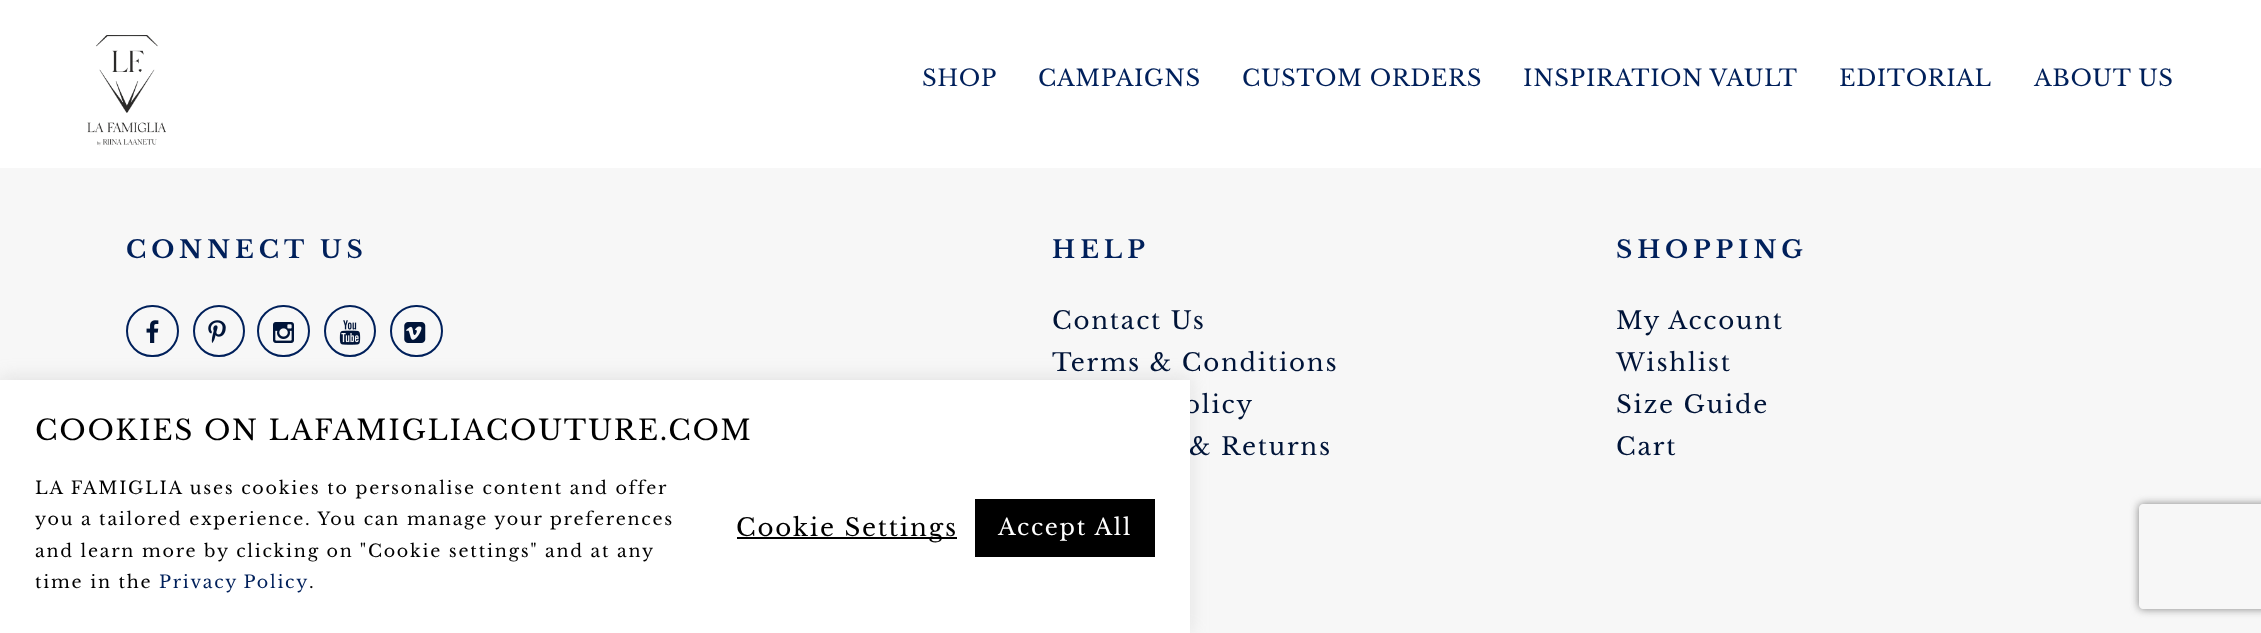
<!DOCTYPE html>
<meta charset="utf-8">
<style>body { margin: 0 } canvas { display: block }</style>
<canvas id="canvas" width="2261" height="633"></canvas>
<img id="img1" src="images/1.png" hidden>
<img id="img2" src="images/2.png" hidden>
<img id="img3" src="images/3.png" hidden>
<img id="img4" src="images/4.png" hidden>
<img id="img5" src="images/5.png" hidden>
<img id="img6" src="images/6.png" hidden>
<script>
window.onload = function () {
    const canvas = document.getElementById('canvas');
    const context = canvas.getContext('2d');
    context.miterLimit = 4;
    context.fontKerning = 'normal';

    context.fillStyle = 'rgb(255, 255, 255)';
    context.fillRect(0, 0, 2261, 633);
    context.drawImage(document.getElementById('img1'), 87, 35, 79, 111);
    context.fillStyle = 'rgb(247, 247, 247)';
    context.fillRect(0, 168, 2261, 465);
    context.beginPath();
    context.roundRect(127, 306, 51, 50, 25);
    context.strokeStyle = 'rgb(0, 32, 91)';
    context.lineWidth = 2;
    context.stroke();
    context.drawImage(document.getElementById('img2'), 146, 320, 13, 23);
    context.beginPath();
    context.arc(219, 331, 25, 0, 2 * Math.PI);
    context.stroke();
    context.drawImage(document.getElementById('img3'), 208, 320, 18, 23);
    context.beginPath();
    context.roundRect(258, 306, 51, 50, 25);
    context.stroke();
    context.drawImage(document.getElementById('img4'), 273, 322, 21, 21);
    context.beginPath();
    context.arc(350, 331, 25, 0, 2 * Math.PI);
    context.stroke();
    context.drawImage(document.getElementById('img5'), 339, 320, 22, 25);
    context.beginPath();
    context.roundRect(391, 306, 51, 50, 25);
    context.stroke();
    context.drawImage(document.getElementById('img6'), 404, 322, 22, 21);
    context.fillStyle = 'rgba(172, 171, 171, 0.3)';
    context.filter = 'blur(9px)';
    context.beginPath();
    context.rect(0, 378, 1190, 254);
    context.fill();
    context.filter = 'none';
    context.save();
    context.beginPath();
    context.moveTo(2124, 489);
    context.lineTo(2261, 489);
    context.lineTo(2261, 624);
    context.lineTo(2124, 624);
    context.closePath();
    context.moveTo(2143, 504);
    context.lineTo(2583, 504);
    context.bezierCurveTo(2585, 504, 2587, 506, 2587, 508);
    context.lineTo(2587, 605);
    context.bezierCurveTo(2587, 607, 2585, 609, 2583, 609);
    context.lineTo(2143, 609);
    context.bezierCurveTo(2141, 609, 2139, 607, 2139, 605);
    context.lineTo(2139, 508);
    context.bezierCurveTo(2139, 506, 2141, 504, 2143, 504);
    context.closePath();
    context.clip('evenodd');
    context.fillStyle = 'rgb(128, 128, 128)';
    context.filter = 'blur(4.5px)';
    context.beginPath();
    context.roundRect(2139, 504, 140, 105, 4);
    context.fill();
    context.filter = 'none';
    context.restore();
    context.letterSpacing = '0.7px';
    context.font = '22.75px Libre Baskerville';
    context.fillStyle = 'rgb(0, 32, 91)';
    context.fillText('SHOP', 922, 86);
    context.fillText('CAMPAIGNS', 1038, 86);
    context.fillText('CUSTOM ORDERS', 1242, 86);
    context.fillText('INSPIRATION VAULT', 1523, 86);
    context.fillText('EDITORIAL', 1839, 86);
    context.fillText('ABOUT US', 2034, 86);
    context.letterSpacing = '5px';
    context.font = 'bold 24.5px Libre Baskerville';
    context.fillText('CONNECT US', 126, 258);
    context.fillText('HELP', 1052, 258);
    context.letterSpacing = '1.75px';
    context.font = '24.5px Libre Baskerville';
    context.fillStyle = 'rgb(0, 20, 56)';
    context.fillText('Contact Us', 1052, 329);
    context.fillText('Terms & Conditions', 1052, 371);
    context.fillText('olicy', 1184, 413);
    context.fillText('& Returns', 1189, 455);
    context.letterSpacing = '5px';
    context.font = 'bold 24.5px Libre Baskerville';
    context.fillStyle = 'rgb(0, 32, 91)';
    context.fillText('SHOPPING', 1616, 258);
    context.letterSpacing = '1.75px';
    context.font = '24.5px Libre Baskerville';
    context.fillStyle = 'rgb(0, 20, 56)';
    context.fillText('My Account', 1616, 329);
    context.fillText('Wishlist', 1616, 371);
    context.fillText('Size Guide', 1616, 413);
    context.fillText('Cart', 1616, 455);
    context.fillStyle = 'rgb(255, 255, 255)';
    context.fillRect(0, 380, 1190, 253);
    context.font = '28px Libre Baskerville';
    context.fillStyle = 'rgb(0, 0, 0)';
    context.fillText('COOKIES ON LAFAMIGLIACOUTURE.COM', 35, 440);
    context.font = '17.5px Libre Baskerville';
    context.fillText('LA FAMIGLIA uses cookies to personalise content and offer', 35, 494);
    context.fillText('you a tailored experience. You can manage your preferences', 35, 525);
    context.fillText('and learn more by clicking on "Cookie settings" and at any', 35, 557);
    context.fillText('time in the', 35, 588);
    context.wordSpacing = '-1px';
    context.fillStyle = 'rgb(0, 32, 91)';
    context.fillText('Privacy Policy', 159, 588);
    context.wordSpacing = '0px';
    context.fillStyle = 'rgb(0, 0, 0)';
    context.fillText('.', 309, 588);
    context.fillRect(737, 537, 220, 2);
    context.font = '24.5px Libre Baskerville';
    context.fillText('Cookie Settings', 736, 536);
    context.fillRect(975, 499, 180, 58);
    context.font = '22.75px Libre Baskerville';
    context.fillStyle = 'rgb(255, 255, 255)';
    context.fillText('Accept All', 998, 535);
};
</script>
